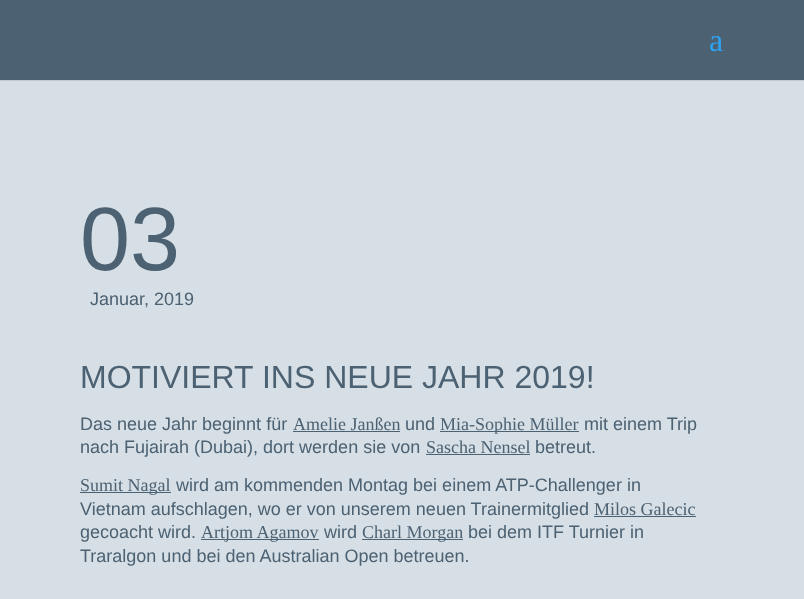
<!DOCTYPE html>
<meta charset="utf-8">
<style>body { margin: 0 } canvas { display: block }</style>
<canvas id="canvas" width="804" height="599"></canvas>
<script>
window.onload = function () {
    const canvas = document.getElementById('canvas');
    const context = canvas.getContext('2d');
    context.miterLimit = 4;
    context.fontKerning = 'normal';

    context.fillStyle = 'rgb(214, 223, 230)';
    context.fillRect(0, 0, 804, 599);
    context.fillStyle = 'rgb(193, 201, 207)';
    context.fillRect(0, 80, 804, 1);
    context.fillStyle = 'rgb(76, 97, 114)';
    context.fillRect(0, 0, 804, 80);
    context.fillRect(293, 431, 107, 1);
    context.fillRect(440, 431, 139, 1);
    context.fillRect(426, 454, 104, 1);
    context.fillRect(80, 492, 91, 1);
    context.fillRect(594, 516, 102, 1);
    context.fillRect(201, 539, 118, 1);
    context.fillRect(362, 539, 101, 1);
    context.font = '32px Liberation Serif';
    context.fillStyle = 'rgb(46, 163, 242)';
    context.fillText('a', 709, 51);
    context.font = '90px Liberation Sans';
    context.fillStyle = 'rgb(76, 97, 114)';
    context.fillText('03', 80, 270);
    context.font = '18px Liberation Sans';
    context.fillText('Januar, 2019', 90, 305);
    context.font = '32px Liberation Sans';
    context.fillText('MOTIVIERT INS NEUE JAHR 2019!', 80, 388);
    context.font = '18px Liberation Sans';
    context.fillText('Das neue Jahr beginnt für', 80, 430);
    context.font = '18px Liberation Serif';
    context.fillText('Amelie Janßen', 293, 430);
    context.font = '18px Liberation Sans';
    context.fillText('und', 405, 430);
    context.font = '18px Liberation Serif';
    context.fillText('Mia-Sophie Müller', 440, 430);
    context.font = '18px Liberation Sans';
    context.fillText('mit einem Trip', 584, 430);
    context.fillText('nach Fujairah (Dubai), dort werden sie von', 80, 453);
    context.font = '18px Liberation Serif';
    context.fillText('Sascha Nensel', 426, 453);
    context.font = '18px Liberation Sans';
    context.fillText('betreut.', 535, 453);
    context.font = '18px Liberation Serif';
    context.fillText('Sumit Nagal', 80, 491);
    context.font = '18px Liberation Sans';
    context.fillText('wird am kommenden Montag bei einem ATP-Challenger in', 176, 491);
    context.fillText('Vietnam aufschlagen, wo er von unserem neuen Trainermitglied', 80, 515);
    context.font = '18px Liberation Serif';
    context.fillText('Milos Galecic', 594, 515);
    context.font = '18px Liberation Sans';
    context.fillText('gecoacht wird.', 80, 538);
    context.font = '18px Liberation Serif';
    context.fillText('Artjom Agamov', 201, 538);
    context.font = '18px Liberation Sans';
    context.fillText('wird', 324, 538);
    context.font = '18px Liberation Serif';
    context.fillText('Charl Morgan', 362, 538);
    context.font = '18px Liberation Sans';
    context.fillText('bei dem ITF Turnier in', 468, 538);
    context.fillText('Traralgon und bei den Australian Open betreuen.', 80, 562);
};
</script>
